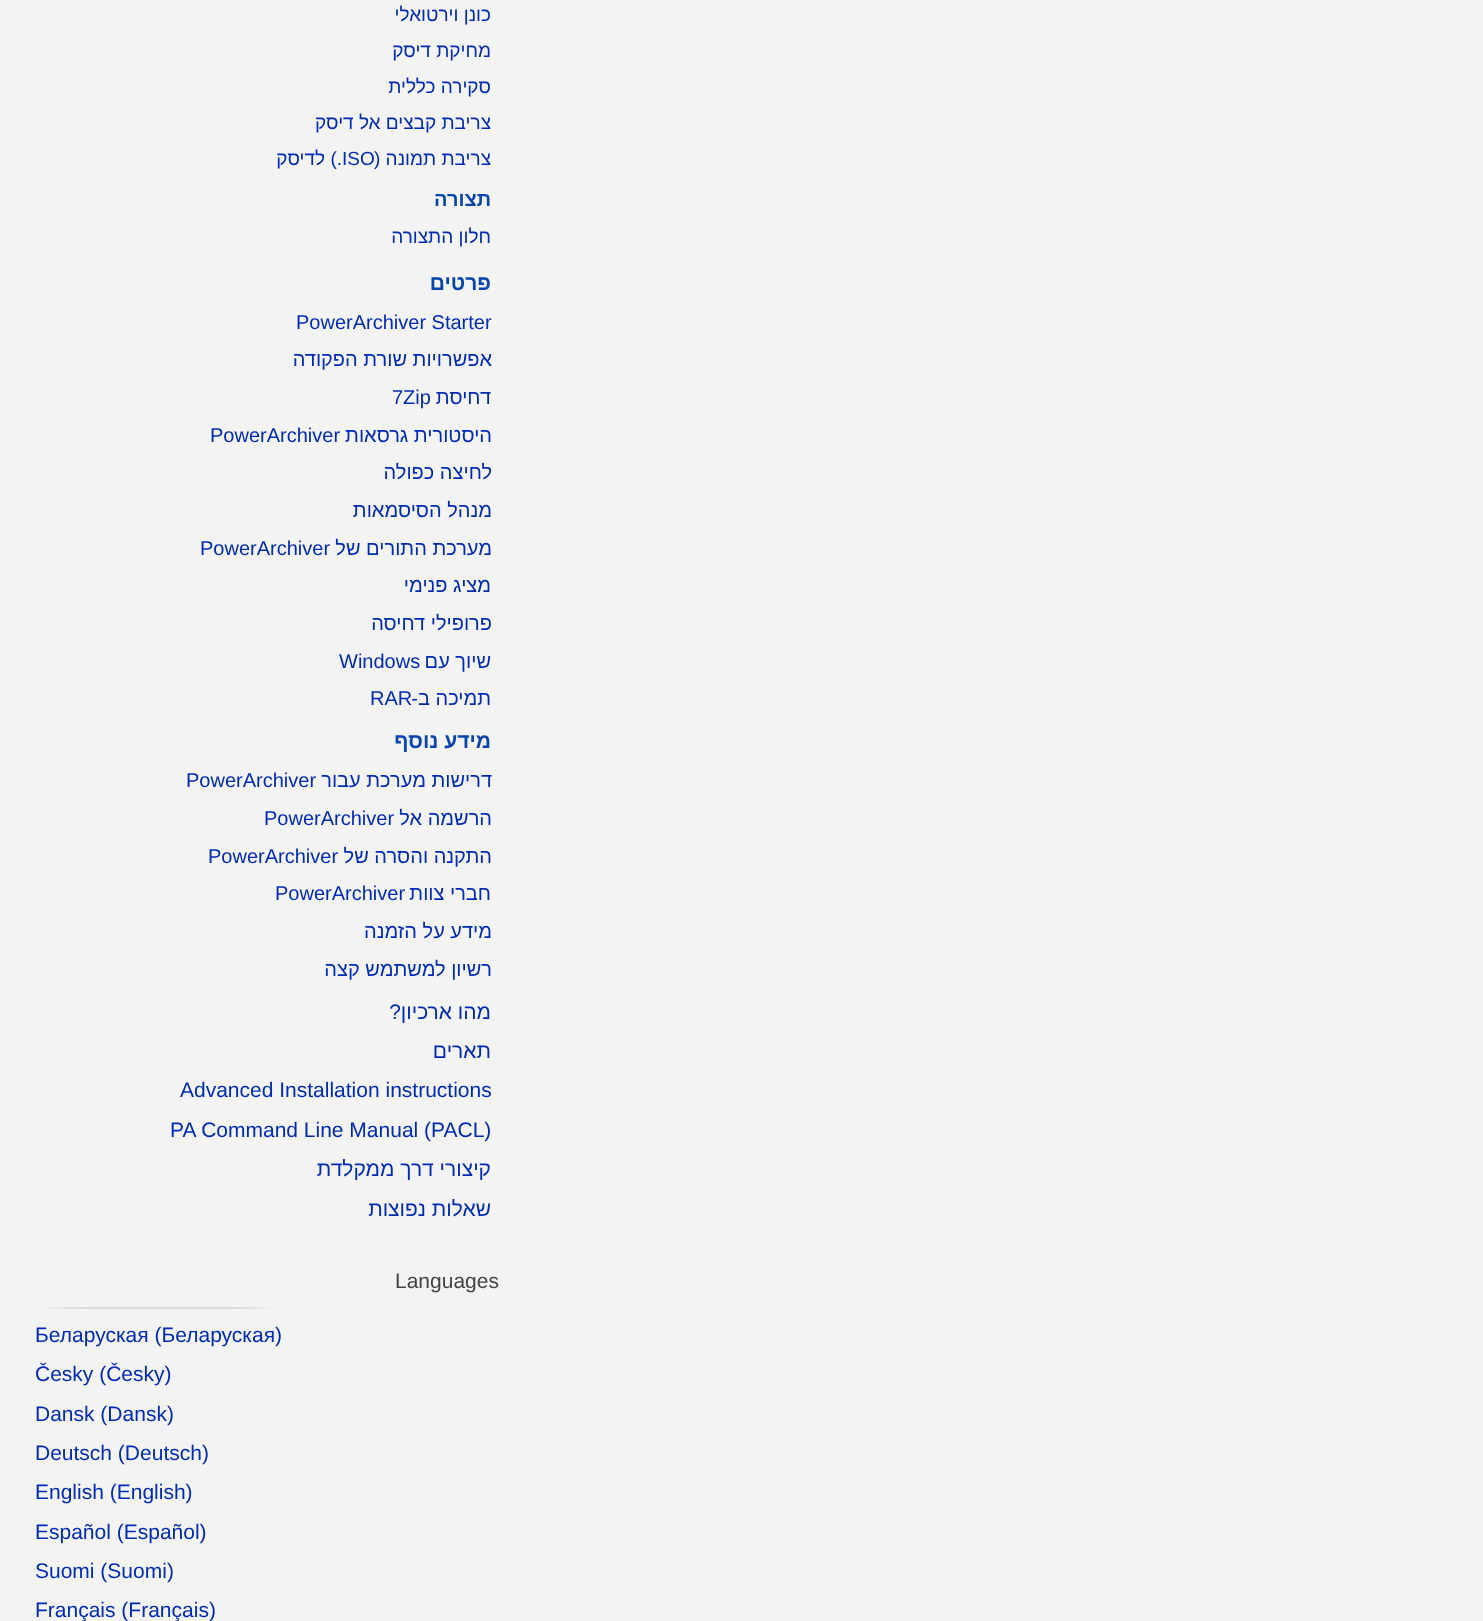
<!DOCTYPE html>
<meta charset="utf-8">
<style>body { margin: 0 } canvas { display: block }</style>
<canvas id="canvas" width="1483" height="1621"></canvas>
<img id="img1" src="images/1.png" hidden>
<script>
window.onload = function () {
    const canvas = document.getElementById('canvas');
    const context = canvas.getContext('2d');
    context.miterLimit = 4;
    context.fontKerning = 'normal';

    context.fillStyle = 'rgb(243, 243, 243)';
    context.fillRect(0, 0, 1483, 1621);
    context.drawImage(document.getElementById('img1'), 46, 1307, 224, 2);
    context.direction = 'rtl';
    context.font = '19px Liberation Sans';
    context.fillStyle = 'rgb(0, 43, 184)';
    context.fillText('כונן וירטואלי', 491, 21);
    context.fillText('מחיקת דיסק', 491, 57);
    context.fillText('סקירה כללית', 491, 93);
    context.fillText('צריבת קבצים אל דיסק', 491, 129);
    context.fillText('צריבת תמונה (', 491, 165);
    context.direction = 'ltr';
    context.fillText('ISO', 342, 165);
    context.direction = 'rtl';
    context.fillText('.) לדיסק', 342, 165);
    context.font = 'bold 20px Liberation Sans';
    context.fillStyle = 'rgb(6, 69, 173)';
    context.fillText('תצורה', 491, 206);
    context.font = '19px Liberation Sans';
    context.fillStyle = 'rgb(0, 43, 184)';
    context.fillText('חלון התצורה', 491, 243);
    context.font = 'bold 21px Liberation Sans';
    context.fillStyle = 'rgb(6, 69, 173)';
    context.fillText('פרטים', 491, 290);
    context.direction = 'ltr';
    context.font = '20px Liberation Sans';
    context.fillStyle = 'rgb(0, 43, 184)';
    context.fillText('PowerArchiver Starter', 296, 329);
    context.direction = 'rtl';
    context.fillText('אפשרויות שורת הפקודה', 492, 366);
    context.fillText('דחיסת', 491, 404);
    context.direction = 'ltr';
    context.fillText('7Zip', 392, 404);
    context.direction = 'rtl';
    context.fillText('היסטורית גרסאות', 492, 442);
    context.direction = 'ltr';
    context.fillText('PowerArchiver', 210, 442);
    context.direction = 'rtl';
    context.fillText('לחיצה כפולה', 492, 479);
    context.fillText('מנהל הסיסמאות', 492, 517);
    context.fillText('מערכת התורים של', 492, 555);
    context.direction = 'ltr';
    context.fillText('PowerArchiver', 200, 555);
    context.direction = 'rtl';
    context.fillText('מציג פנימי', 491, 592);
    context.fillText('פרופילי דחיסה', 492, 630);
    context.fillText('שיוך עם', 491, 668);
    context.direction = 'ltr';
    context.fillText('Windows', 339, 668);
    context.direction = 'rtl';
    context.fillText('תמיכה ב-', 491, 705);
    context.direction = 'ltr';
    context.fillText('RAR', 370, 705);
    context.direction = 'rtl';
    context.font = 'bold 21px Liberation Sans';
    context.fillStyle = 'rgb(6, 69, 173)';
    context.fillText('מידע נוסף', 491, 748);
    context.font = '20px Liberation Sans';
    context.fillStyle = 'rgb(0, 43, 184)';
    context.fillText('דרישות מערכת עבור', 492, 787);
    context.direction = 'ltr';
    context.fillText('PowerArchiver', 186, 787);
    context.direction = 'rtl';
    context.fillText('הרשמה אל', 492, 825);
    context.direction = 'ltr';
    context.fillText('PowerArchiver', 264, 825);
    context.direction = 'rtl';
    context.fillText('התקנה והסרה של', 492, 863);
    context.direction = 'ltr';
    context.fillText('PowerArchiver', 208, 863);
    context.direction = 'rtl';
    context.fillText('חברי צוות', 491, 900);
    context.direction = 'ltr';
    context.fillText('PowerArchiver', 275, 900);
    context.direction = 'rtl';
    context.fillText('מידע על הזמנה', 492, 938);
    context.fillText('רשיון למשתמש קצה', 492, 976);
    context.font = '21px Liberation Sans';
    context.fillText('מהו ארכיון?', 491, 1019);
    context.fillText('תארים', 491, 1058);
    context.direction = 'ltr';
    context.fillText('Advanced Installation instructions', 180, 1097);
    context.fillText('PA Command Line Manual (PACL)', 170, 1137);
    context.direction = 'rtl';
    context.fillText('קיצורי דרך ממקלדת', 491, 1176);
    context.fillText('שאלות נפוצות', 491, 1216);
    context.direction = 'ltr';
    context.fillStyle = 'rgb(68, 68, 68)';
    context.fillText('Languages', 395, 1288);
    context.fillStyle = 'rgb(0, 43, 184)';
    context.fillText('Беларуская (Беларуская)', 35, 1342);
    context.fillText('Česky (Česky)', 35, 1381);
    context.fillText('Dansk (Dansk)', 35, 1421);
    context.fillText('Deutsch (Deutsch)', 35, 1460);
    context.fillText('English (English)', 35, 1499);
    context.fillText('Español (Español)', 35, 1539);
    context.fillText('Suomi (Suomi)', 35, 1578);
    context.fillText('Français (Français)', 35, 1617);
};
</script>
